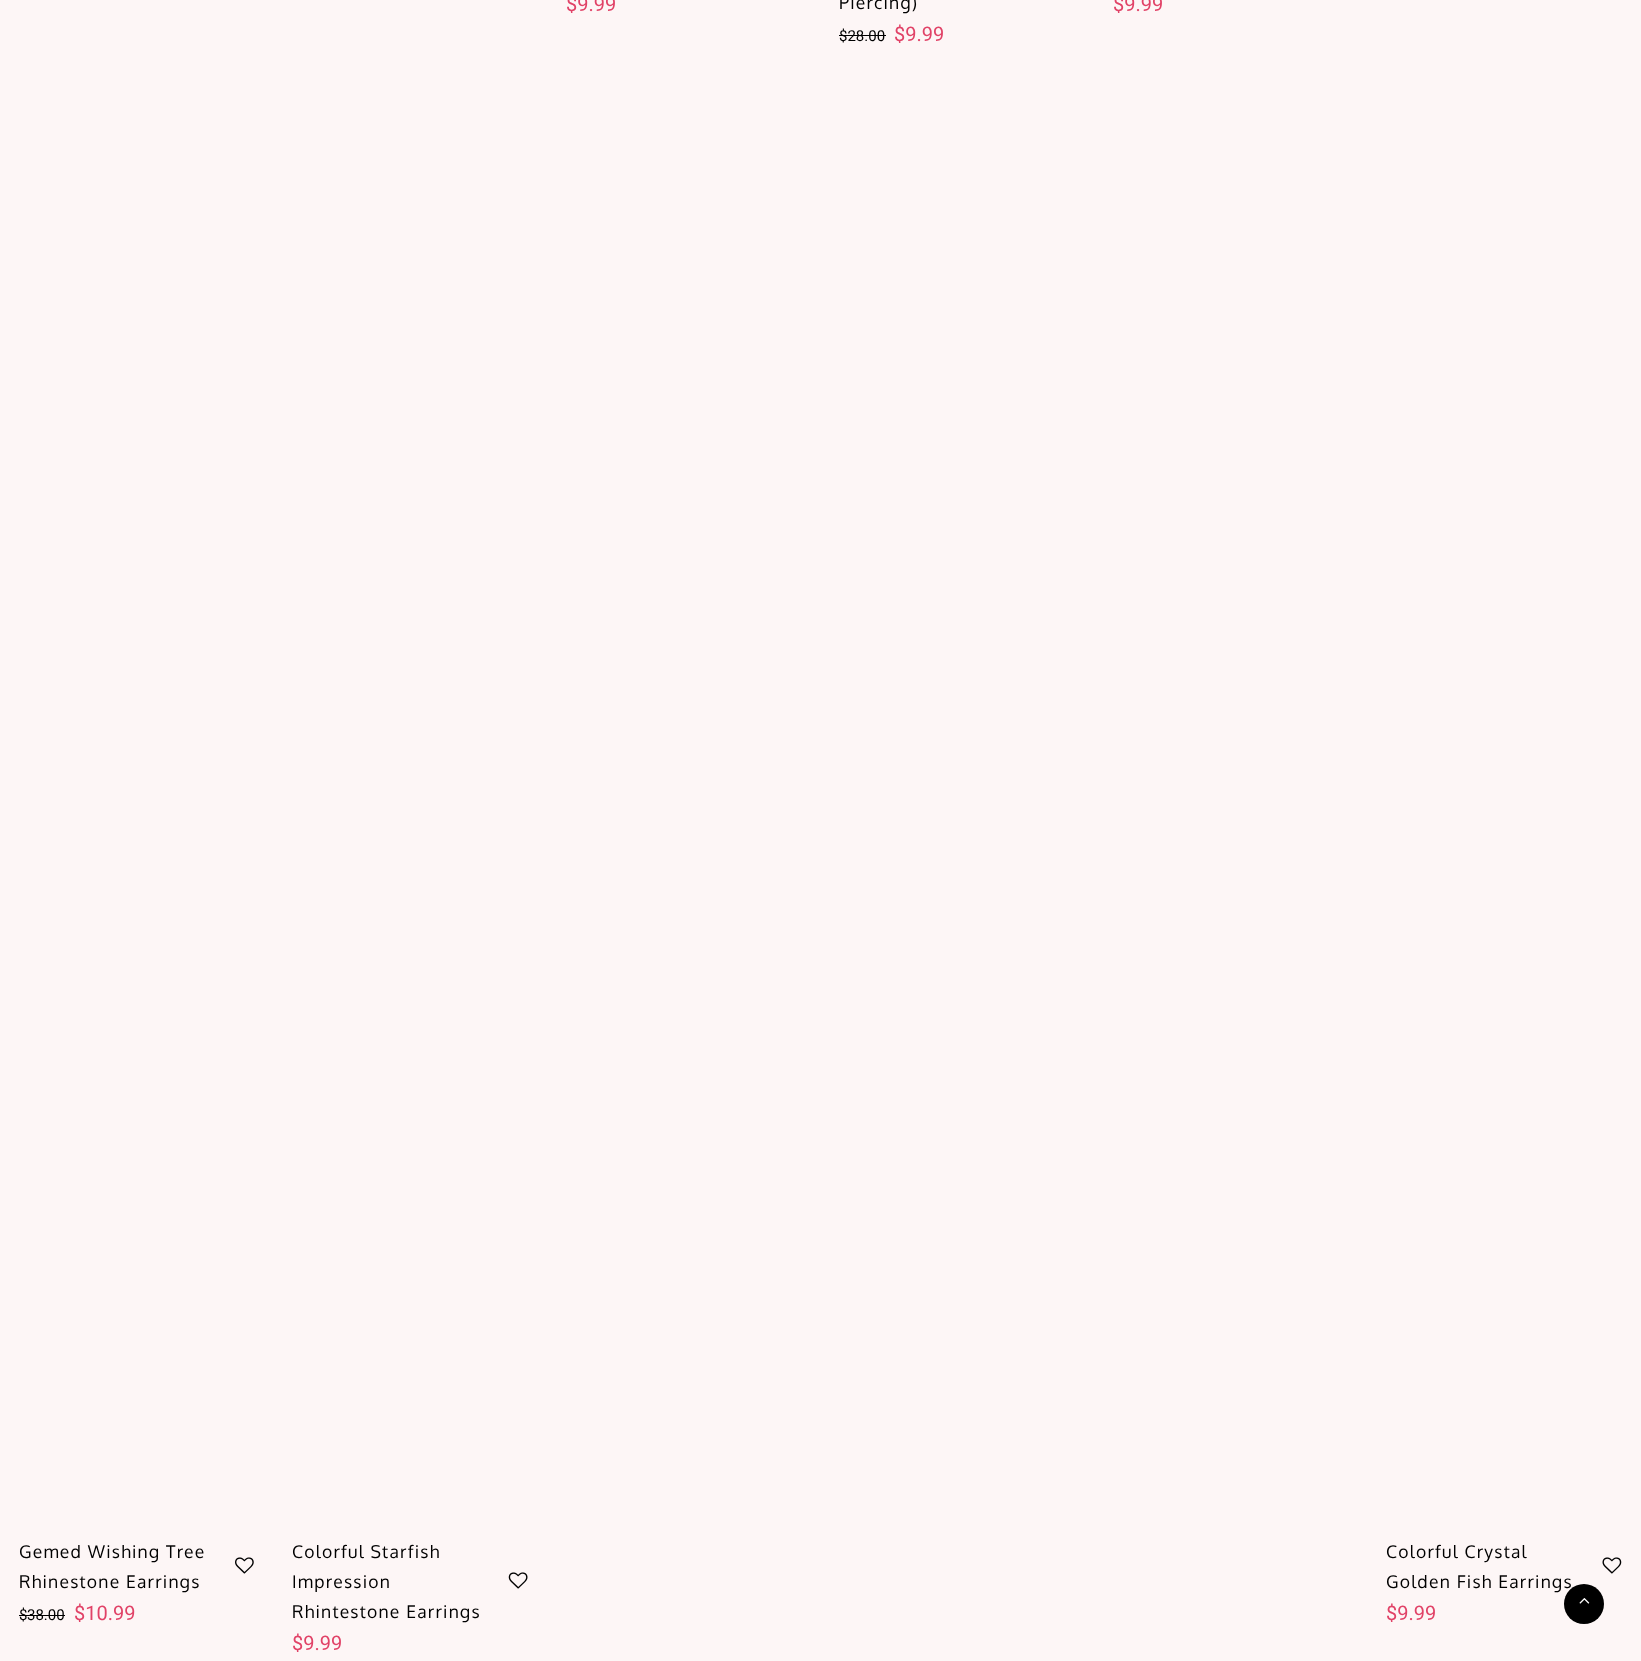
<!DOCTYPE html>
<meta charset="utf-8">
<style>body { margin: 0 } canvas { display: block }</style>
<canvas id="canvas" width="1641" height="1661"></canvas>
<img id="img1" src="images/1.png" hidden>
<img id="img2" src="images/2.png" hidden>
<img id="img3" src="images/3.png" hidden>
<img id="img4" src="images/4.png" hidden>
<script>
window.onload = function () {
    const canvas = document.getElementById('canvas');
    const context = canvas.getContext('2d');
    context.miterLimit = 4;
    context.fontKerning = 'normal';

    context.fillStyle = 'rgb(253, 246, 246)';
    context.fillRect(0, 0, 1641, 1661);
    context.fillStyle = 'rgb(0, 0, 0)';
    context.fillRect(839, 35, 47, 1);
    context.drawImage(document.getElementById('img1'), 235, 1557, 19, 17);
    context.fillRect(19, 1615, 9, 1);
    context.fillRect(28, 1615, 37, 1);
    context.drawImage(document.getElementById('img2'), 508, 1572, 20, 17);
    context.drawImage(document.getElementById('img3'), 1602, 1557, 20, 17);
    context.beginPath();
    context.arc(1584, 1604, 20, 0, 2 * Math.PI);
    context.fill();
    context.drawImage(document.getElementById('img4'), 1579, 1598, 11, 6);
    context.font = '20px Roboto';
    context.fillStyle = 'rgb(225, 66, 103)';
    context.fillText('$9.99', 566, 11);
    context.letterSpacing = '1.25px';
    context.font = '17.5px Oxygen';
    context.fillStyle = 'rgb(0, 0, 0)';
    context.fillText('Piercing)', 839, 9);
    context.letterSpacing = '0px';
    context.font = '15px Roboto';
    context.fillText('$28.00', 839, 41);
    context.font = '20px Roboto';
    context.fillStyle = 'rgb(225, 66, 103)';
    context.fillText('$9.99', 894, 41);
    context.fillText('$9.99', 1113, 11);
    context.letterSpacing = '1.25px';
    context.font = '17.5px Oxygen';
    context.fillStyle = 'rgb(0, 0, 0)';
    context.fillText('Gemed Wishing Tree', 19, 1558);
    context.fillText('Rhinestone Earrings', 19, 1588);
    context.letterSpacing = '0px';
    context.font = '15px Roboto';
    context.fillText('$', 19, 1620);
    context.fillText('38.00', 27, 1620);
    context.font = '20px Roboto';
    context.fillStyle = 'rgb(225, 66, 103)';
    context.fillText('$10.99', 74, 1620);
    context.letterSpacing = '1.25px';
    context.font = '17.5px Oxygen';
    context.fillStyle = 'rgb(0, 0, 0)';
    context.fillText('Colorful Starfish', 292, 1558);
    context.fillText('Impression', 292, 1588);
    context.fillText('Rhintestone Earrings', 292, 1618);
    context.letterSpacing = '0px';
    context.font = '20px Roboto';
    context.fillStyle = 'rgb(225, 66, 103)';
    context.fillText('$9.99', 292, 1650);
    context.letterSpacing = '1.25px';
    context.font = '17.5px Oxygen';
    context.fillStyle = 'rgb(0, 0, 0)';
    context.fillText('Colorful Crystal', 1386, 1558);
    context.fillText('Golden Fish Earrings', 1386, 1588);
    context.letterSpacing = '0px';
    context.font = '20px Roboto';
    context.fillStyle = 'rgb(225, 66, 103)';
    context.fillText('$9.99', 1386, 1620);
};
</script>
